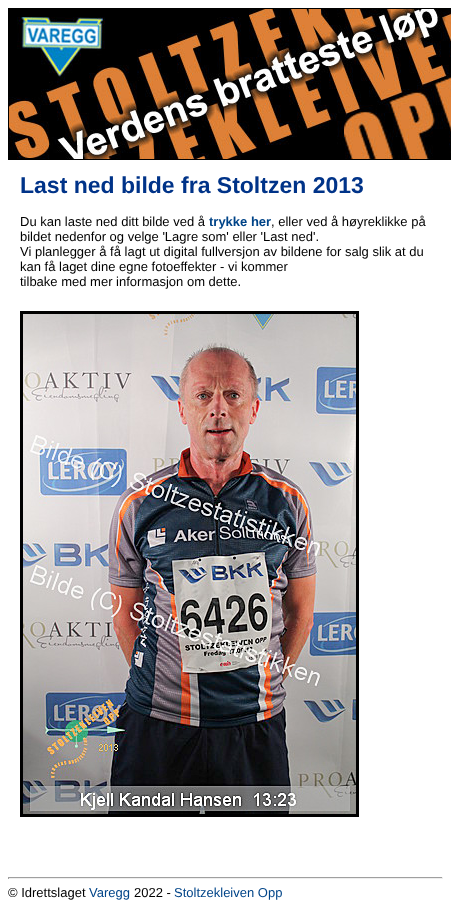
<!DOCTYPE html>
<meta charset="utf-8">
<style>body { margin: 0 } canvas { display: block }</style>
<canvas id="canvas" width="451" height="909"></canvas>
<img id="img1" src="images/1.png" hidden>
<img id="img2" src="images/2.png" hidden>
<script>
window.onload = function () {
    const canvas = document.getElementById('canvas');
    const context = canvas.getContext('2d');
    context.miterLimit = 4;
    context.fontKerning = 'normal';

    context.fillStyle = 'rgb(255, 255, 255)';
    context.fillRect(0, 0, 451, 909);
    context.strokeStyle = 'rgb(0, 0, 0)';
    context.strokeRect(8.5, 8.5, 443, 151);
    context.drawImage(document.getElementById('img1'), 9, 9, 442, 150);
    context.lineWidth = 3;
    context.strokeRect(21.5, 312.5, 336, 503);
    context.drawImage(document.getElementById('img2'), 23, 314, 333, 500);
    context.fillStyle = 'rgb(159, 159, 159)';
    context.fillRect(8, 877, 435, 1);
    context.fillStyle = 'rgb(238, 238, 238)';
    context.fillRect(442, 877, 1, 2);
    context.fillRect(8, 878, 435, 1);
    context.fillStyle = 'rgb(159, 159, 159)';
    context.fillRect(8, 877, 1, 2);
    context.font = 'bold 23px Liberation Sans';
    context.fillStyle = 'rgb(0, 51, 136)';
    context.fillText('Last ned bilde fra Stoltzen 2013', 20, 193);
    context.font = '13px Liberation Sans';
    context.fillStyle = 'rgb(0, 0, 0)';
    context.fillText('Du kan laste ned ditt bilde ved å', 20, 226);
    context.font = 'bold 13px Liberation Sans';
    context.fillStyle = 'rgb(0, 68, 136)';
    context.fillText('trykke her', 209, 226);
    context.font = '13px Liberation Sans';
    context.fillStyle = 'rgb(0, 0, 0)';
    context.fillText(', eller ved å høyreklikke på', 271, 226);
    context.fillText('bildet nedenfor og velge \'Lagre som\' eller \'Last ned\'.', 20, 241);
    context.fillText('Vi planlegger å få lagt ut digital fullversjon av bildene for salg slik at du', 20, 256);
    context.fillText('kan få laget dine egne fotoeffekter - vi kommer', 20, 271);
    context.fillText('tilbake med mer informasjon om dette.', 20, 286);
    context.fillText('© Idrettslaget', 8, 897);
    context.fillStyle = 'rgb(0, 68, 136)';
    context.fillText('Varegg', 89, 897);
    context.fillStyle = 'rgb(0, 0, 0)';
    context.fillText('2022 -', 134, 897);
    context.fillStyle = 'rgb(0, 68, 136)';
    context.fillText('Stoltzekleiven Opp', 174, 897);
};
</script>
